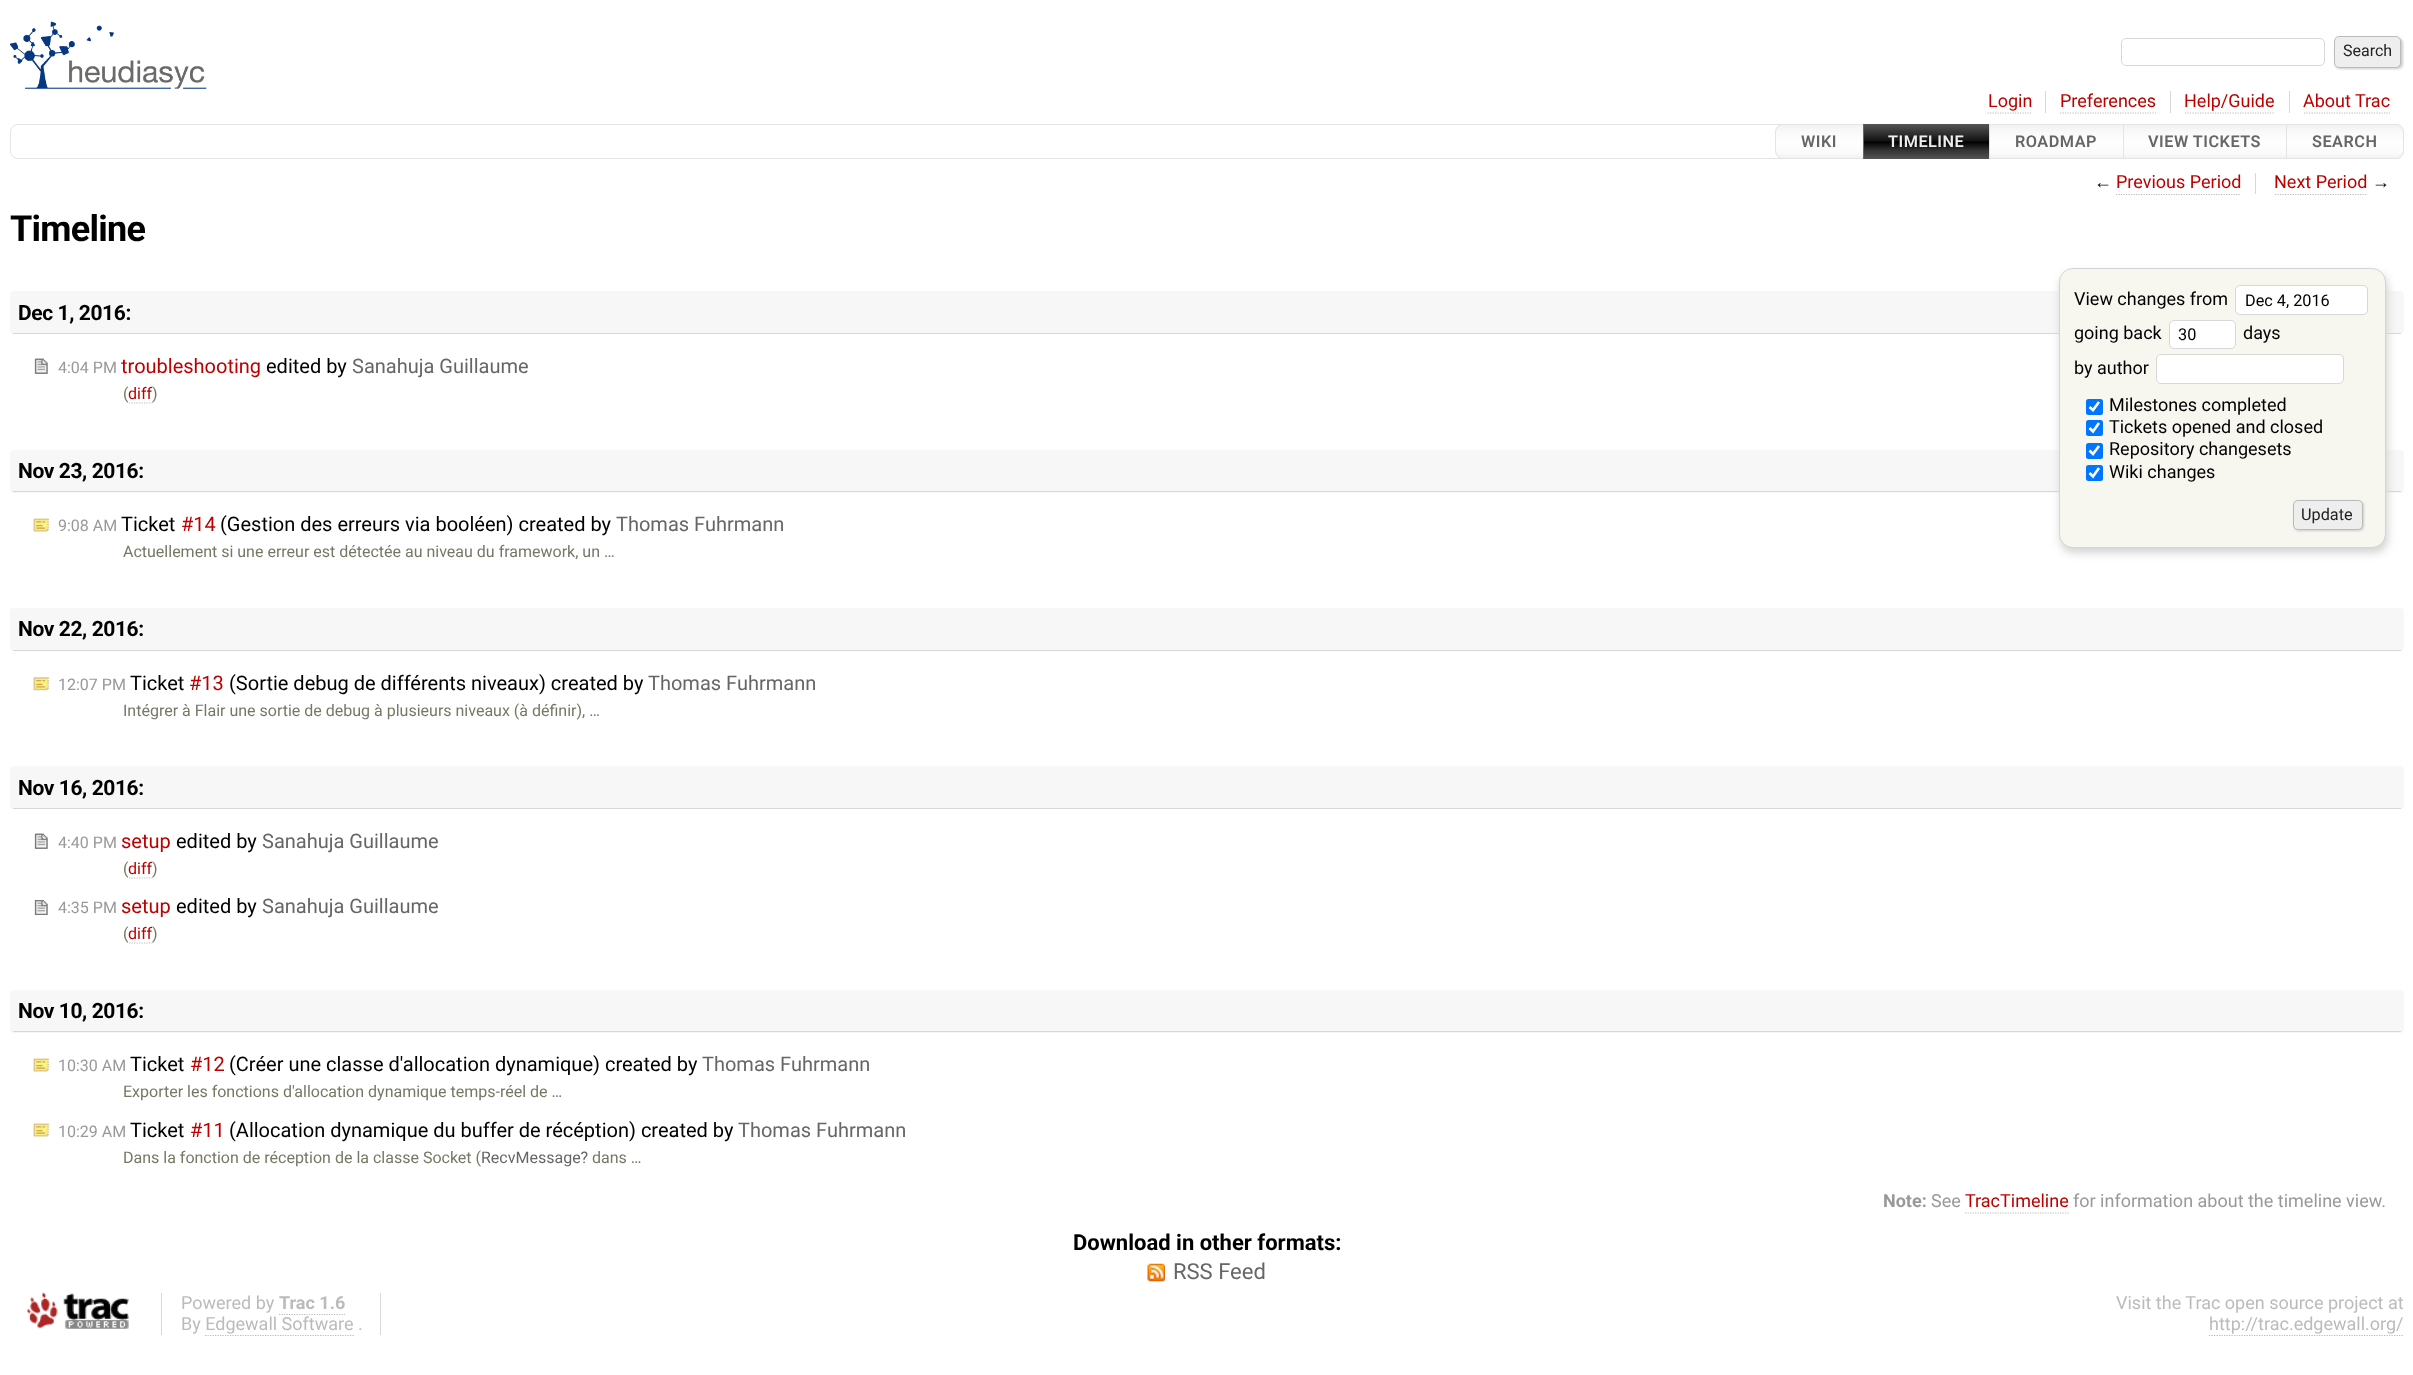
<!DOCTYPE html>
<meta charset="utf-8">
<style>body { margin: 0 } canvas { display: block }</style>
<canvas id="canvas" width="2413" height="1375"></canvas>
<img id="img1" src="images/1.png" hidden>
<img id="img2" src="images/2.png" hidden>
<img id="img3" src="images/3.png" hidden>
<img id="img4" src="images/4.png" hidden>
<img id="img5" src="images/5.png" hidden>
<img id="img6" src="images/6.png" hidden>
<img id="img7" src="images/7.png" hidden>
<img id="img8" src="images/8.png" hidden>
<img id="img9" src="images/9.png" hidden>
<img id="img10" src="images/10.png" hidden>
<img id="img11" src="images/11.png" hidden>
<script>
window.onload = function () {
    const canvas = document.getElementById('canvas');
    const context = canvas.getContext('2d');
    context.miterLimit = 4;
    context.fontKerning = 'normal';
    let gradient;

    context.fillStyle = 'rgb(255, 255, 255)';
    context.fillRect(0, 0, 2413, 1375);
    context.drawImage(document.getElementById('img1'), 10, 21, 197, 68);
    context.beginPath();
    context.roundRect(2121.5, 38.5, 203, 27, 4.5);
    context.strokeStyle = 'rgb(215, 215, 215)';
    context.stroke();
    context.fillStyle = 'rgb(204, 204, 204)';
    context.filter = 'blur(1px)';
    context.beginPath();
    context.roundRect(2335, 38, 68, 31, 5);
    context.fill();
    context.filter = 'none';
    context.fillStyle = 'rgb(238, 238, 238)';
    context.beginPath();
    context.roundRect(2334.5, 36.5, 66, 31, 4.5);
    context.fill();
    context.strokeStyle = 'rgb(187, 187, 187)';
    context.stroke();
    context.fillStyle = 'rgb(215, 215, 215)';
    context.fillRect(2045, 91, 1, 22);
    context.beginPath();
    context.moveTo(1987.5, 113);
    context.lineTo(2032.5, 113);
    context.lineWidth = 1.2;
    context.setLineDash([1.25, 1.25]);
    context.stroke();
    context.fillRect(2170, 91, 1, 22);
    context.beginPath();
    context.moveTo(2060, 113);
    context.lineTo(2156, 113);
    context.stroke();
    context.fillRect(2289, 91, 1, 22);
    context.beginPath();
    context.moveTo(2185, 113);
    context.lineTo(2275, 113);
    context.stroke();
    context.beginPath();
    context.moveTo(2304, 113);
    context.lineTo(2390, 113);
    context.stroke();
    context.beginPath();
    context.roundRect(10.5, 124.5, 2393, 34, 7.5);
    context.strokeStyle = 'rgb(228, 228, 228)';
    context.lineWidth = 1;
    context.setLineDash([]);
    context.stroke();
    context.save();
    context.beginPath();
    context.roundRect(1775, 124, 89, 35, [8, 0, 0, 8]);
    context.clip();
    gradient = context.createLinearGradient(1819, 125, 1819, 158);
    gradient.addColorStop(0, 'rgb(242, 242, 242)');
    gradient.addColorStop(0.25, 'rgb(250, 250, 250)');
    gradient.addColorStop(0.49, 'rgb(254, 254, 254)');
    gradient.addColorStop(0.51, 'rgb(255, 255, 255)');
    gradient.addColorStop(0.85, 'rgb(250, 250, 250)');
    gradient.addColorStop(1, 'rgb(242, 242, 242)');
    context.fillStyle = gradient;
    context.fillRect(1775, 125, 88, 33);
    context.restore();
    context.beginPath();
    context.roundRect(1775.5, 124.5, 88, 34, [7.5, 0, 0, 7.5]);
    context.stroke();
    context.strokeStyle = 'rgb(102, 102, 102)';
    context.strokeRect(1863.5, 124.5, 127, 34);
    gradient = context.createLinearGradient(1927, 124, 1927, 159);
    gradient.addColorStop(0, 'rgb(85, 85, 85)');
    gradient.addColorStop(0.25, 'rgb(51, 51, 51)');
    gradient.addColorStop(0.49, 'rgb(17, 17, 17)');
    gradient.addColorStop(0.51, 'rgb(0, 0, 0)');
    gradient.addColorStop(0.75, 'rgb(51, 51, 51)');
    gradient.addColorStop(1, 'rgb(85, 85, 85)');
    context.fillStyle = gradient;
    context.fillRect(1864, 124, 125, 35);
    gradient = context.createLinearGradient(2056, 125, 2056, 158);
    gradient.addColorStop(0, 'rgb(242, 242, 242)');
    gradient.addColorStop(0.25, 'rgb(250, 250, 250)');
    gradient.addColorStop(0.49, 'rgb(254, 254, 254)');
    gradient.addColorStop(0.51, 'rgb(255, 255, 255)');
    gradient.addColorStop(0.85, 'rgb(250, 250, 250)');
    gradient.addColorStop(1, 'rgb(242, 242, 242)');
    context.fillStyle = gradient;
    context.fillRect(1990, 125, 133, 33);
    context.strokeStyle = 'rgb(228, 228, 228)';
    context.strokeRect(1989.5, 124.5, 134, 34);
    gradient = context.createLinearGradient(2205, 125, 2205, 158);
    gradient.addColorStop(0, 'rgb(242, 242, 242)');
    gradient.addColorStop(0.25, 'rgb(250, 250, 250)');
    gradient.addColorStop(0.49, 'rgb(254, 254, 254)');
    gradient.addColorStop(0.51, 'rgb(255, 255, 255)');
    gradient.addColorStop(0.85, 'rgb(250, 250, 250)');
    gradient.addColorStop(1, 'rgb(242, 242, 242)');
    context.fillStyle = gradient;
    context.fillRect(2124, 125, 162, 33);
    context.strokeRect(2123.5, 124.5, 164, 34);
    context.save();
    context.beginPath();
    context.roundRect(2286, 124, 118, 35, [0, 8, 8, 0]);
    context.clip();
    gradient = context.createLinearGradient(2345, 125, 2345, 158);
    gradient.addColorStop(0, 'rgb(242, 242, 242)');
    gradient.addColorStop(0.25, 'rgb(250, 250, 250)');
    gradient.addColorStop(0.49, 'rgb(254, 254, 254)');
    gradient.addColorStop(0.51, 'rgb(255, 255, 255)');
    gradient.addColorStop(0.85, 'rgb(250, 250, 250)');
    gradient.addColorStop(1, 'rgb(242, 242, 242)');
    context.fillStyle = gradient;
    context.fillRect(2287, 125, 117, 33);
    context.restore();
    context.beginPath();
    context.roundRect(2286.5, 124.5, 117, 34, [0, 7.5, 7.5, 0]);
    context.stroke();
    context.fillStyle = 'rgb(215, 215, 215)';
    context.fillRect(2255, 173, 1, 21);
    context.beginPath();
    context.moveTo(2116, 194.5);
    context.lineTo(2241, 194.5);
    context.strokeStyle = 'rgb(187, 187, 187)';
    context.lineWidth = 1.2;
    context.setLineDash([1.25, 1.25]);
    context.stroke();
    context.beginPath();
    context.moveTo(2275, 194.5);
    context.lineTo(2367.5, 194.5);
    context.stroke();
    context.fillStyle = 'rgb(247, 247, 247)';
    context.beginPath();
    context.roundRect(10, 291, 2394, 43, 4);
    context.fill();
    context.fillStyle = 'rgb(215, 215, 215)';
    context.fillRect(13, 333, 2388, 1);
    context.fillStyle = 'rgb(247, 247, 247)';
    context.beginPath();
    context.roundRect(10, 450, 2394, 43, 4);
    context.fill();
    context.fillStyle = 'rgb(215, 215, 215)';
    context.fillRect(13, 491, 2388, 1);
    context.fillStyle = 'rgb(212, 212, 212)';
    context.filter = 'blur(4.5px)';
    context.beginPath();
    context.roundRect(2060, 273, 328, 280, 14);
    context.fill();
    context.filter = 'none';
    context.fillStyle = 'rgb(247, 247, 240)';
    context.beginPath();
    context.roundRect(2059.5, 268.5, 326, 279, 13.5);
    context.fill();
    context.strokeStyle = 'rgb(212, 212, 212)';
    context.lineWidth = 1;
    context.setLineDash([]);
    context.stroke();
    context.fillStyle = 'rgb(255, 255, 255)';
    context.beginPath();
    context.roundRect(2235.5, 285.5, 132, 29, 4.5);
    context.fill();
    context.strokeStyle = 'rgb(215, 215, 215)';
    context.stroke();
    context.beginPath();
    context.roundRect(2169.5, 320.5, 66, 28, 4.5);
    context.fill();
    context.stroke();
    context.beginPath();
    context.roundRect(2156.5, 354.5, 187, 29, 4.5);
    context.fill();
    context.stroke();
    context.fillStyle = 'rgb(0, 117, 255)';
    context.beginPath();
    context.roundRect(2086, 399, 17, 16, 2.5);
    context.fill();
    context.beginPath();
    context.moveTo(2089.5, 407);
    context.lineTo(2093, 410);
    context.lineTo(2099, 402);
    context.strokeStyle = 'rgb(255, 255, 255)';
    context.lineWidth = 2.6;
    context.stroke();
    context.beginPath();
    context.roundRect(2086, 420, 17, 16, 2.5);
    context.fill();
    context.beginPath();
    context.moveTo(2089.5, 428);
    context.lineTo(2093, 431.5);
    context.lineTo(2099, 423);
    context.stroke();
    context.beginPath();
    context.roundRect(2086, 443, 17, 16, 2.5);
    context.fill();
    context.beginPath();
    context.moveTo(2089.5, 450.5);
    context.lineTo(2093, 454);
    context.lineTo(2099, 446);
    context.stroke();
    context.beginPath();
    context.roundRect(2086, 465, 17, 16, 2.5);
    context.fill();
    context.beginPath();
    context.moveTo(2089.5, 473);
    context.lineTo(2093, 476.5);
    context.lineTo(2099, 468);
    context.stroke();
    context.fillStyle = 'rgb(204, 204, 204)';
    context.filter = 'blur(1px)';
    context.beginPath();
    context.roundRect(2294, 501, 70, 30, 5);
    context.fill();
    context.filter = 'none';
    context.fillStyle = 'rgb(238, 238, 238)';
    context.beginPath();
    context.roundRect(2293.5, 500.5, 69, 29, 4.5);
    context.fill();
    context.strokeStyle = 'rgb(187, 187, 187)';
    context.lineWidth = 1;
    context.stroke();
    context.drawImage(document.getElementById('img2'), 34, 358, 14, 16);
    context.drawImage(document.getElementById('img3'), 34, 358, 14, 16);
    context.beginPath();
    context.moveTo(129, 403);
    context.lineTo(152.5, 403);
    context.lineWidth = 1.2;
    context.setLineDash([1.25, 1.25]);
    context.stroke();
    context.drawImage(document.getElementById('img4'), 33, 518, 16, 14);
    context.drawImage(document.getElementById('img5'), 33, 518, 16, 14);
    context.fillStyle = 'rgb(247, 247, 247)';
    context.beginPath();
    context.roundRect(10, 608, 2394, 43, 4);
    context.fill();
    context.fillStyle = 'rgb(215, 215, 215)';
    context.fillRect(13, 650, 2388, 1);
    context.drawImage(document.getElementById('img6'), 33, 677, 16, 14);
    context.drawImage(document.getElementById('img7'), 33, 677, 16, 14);
    context.fillStyle = 'rgb(247, 247, 247)';
    context.beginPath();
    context.roundRect(10, 766, 2394, 43, 4);
    context.fill();
    context.fillStyle = 'rgb(215, 215, 215)';
    context.fillRect(13, 808, 2388, 1);
    context.drawImage(document.getElementById('img2'), 34, 833, 14, 16);
    context.drawImage(document.getElementById('img3'), 34, 833, 14, 16);
    context.beginPath();
    context.moveTo(129, 878);
    context.lineTo(152.5, 878);
    context.stroke();
    context.drawImage(document.getElementById('img8'), 34, 900, 14, 15);
    context.drawImage(document.getElementById('img9'), 34, 900, 14, 15);
    context.beginPath();
    context.moveTo(129, 943);
    context.lineTo(152.5, 943);
    context.stroke();
    context.fillStyle = 'rgb(247, 247, 247)';
    context.beginPath();
    context.roundRect(10, 990, 2394, 43, 4);
    context.fill();
    context.fillStyle = 'rgb(215, 215, 215)';
    context.fillRect(13, 1031, 2388, 1);
    context.drawImage(document.getElementById('img4'), 33, 1058, 16, 14);
    context.drawImage(document.getElementById('img5'), 33, 1058, 16, 14);
    context.drawImage(document.getElementById('img4'), 33, 1123, 16, 14);
    context.drawImage(document.getElementById('img5'), 33, 1123, 16, 14);
    context.beginPath();
    context.moveTo(1965, 1213);
    context.lineTo(2069, 1213);
    context.stroke();
    context.drawImage(document.getElementById('img10'), 1147, 1263, 18, 19);
    context.drawImage(document.getElementById('img11'), 27, 1292, 102, 37);
    context.fillRect(380, 1293, 1, 42);
    context.fillRect(161, 1293, 1, 42);
    context.beginPath();
    context.moveTo(279, 1314.5);
    context.lineTo(345, 1314.5);
    context.stroke();
    context.beginPath();
    context.moveTo(205, 1335.5);
    context.lineTo(354, 1335.5);
    context.stroke();
    context.beginPath();
    context.moveTo(2209, 1335.5);
    context.lineTo(2404, 1335.5);
    context.stroke();
    context.font = '16px Roboto';
    context.fillStyle = 'rgb(34, 34, 34)';
    context.fillText('Search', 2343, 56);
    context.font = '18px Roboto';
    context.fillStyle = 'rgb(187, 0, 0)';
    context.fillText('Login', 1988, 107);
    context.fillText('Preferences', 2060, 107);
    context.fillText('Help/Guide', 2184, 107);
    context.fillText('About Trac', 2303, 107);
    context.letterSpacing = '0.5px';
    context.font = '600 16.25px Roboto';
    context.fillStyle = 'rgb(102, 102, 102)';
    context.fillText('WIKI', 1801, 147);
    context.fillStyle = 'rgb(238, 238, 238)';
    context.fillText('TIMELINE', 1888, 147);
    context.fillStyle = 'rgb(102, 102, 102)';
    context.fillText('ROADMAP', 2015, 147);
    context.fillText('VIEW TICKETS', 2148, 147);
    context.fillText('SEARCH', 2312, 147);
    context.letterSpacing = '0px';
    context.font = '18px Liberation Sans';
    context.fillStyle = 'rgb(0, 0, 0)';
    context.fillText('←', 2094, 188);
    context.font = '18px Roboto';
    context.fillStyle = 'rgb(187, 0, 0)';
    context.fillText('Previous Period', 2116, 188);
    context.fillText('Next Period', 2274, 188);
    context.font = '18px Liberation Sans';
    context.fillStyle = 'rgb(0, 0, 0)';
    context.fillText('→', 2372, 188);
    context.letterSpacing = '-0.75px';
    context.font = 'bold 36px Roboto';
    context.fillText('Timeline', 10, 241);
    context.letterSpacing = '-0.4px';
    context.font = 'bold 21px Roboto';
    context.fillText('Dec 1, 2016:', 18, 320);
    context.letterSpacing = '0px';
    context.font = '18px Roboto';
    context.fillText('View changes from', 2074, 305);
    context.font = '16.25px Roboto';
    context.fillText('Dec 4, 2016', 2245, 306);
    context.font = '18px Roboto';
    context.fillText('going back', 2074, 339);
    context.font = '16.25px Roboto';
    context.fillText('30', 2178, 340);
    context.font = '18px Roboto';
    context.fillText('days', 2243, 339);
    context.fillText('by author', 2074, 374);
    context.fillText('Milestones completed', 2109, 411);
    context.fillText('Tickets opened and closed', 2109, 433);
    context.fillText('Repository changesets', 2109, 455);
    context.fillText('Wiki changes', 2109, 478);
    context.font = '16.25px Roboto';
    context.fillStyle = 'rgb(34, 34, 34)';
    context.fillText('Update', 2301, 520);
    context.font = '16px Roboto';
    context.fillStyle = 'rgb(153, 153, 153)';
    context.fillText('4:04 PM', 58, 373);
    context.font = '20px Roboto';
    context.fillStyle = 'rgb(187, 0, 0)';
    context.fillText('troubleshooting', 121, 373);
    context.fillStyle = 'rgb(0, 0, 0)';
    context.fillText('edited by', 266, 373);
    context.fillStyle = 'rgb(102, 102, 102)';
    context.fillText('Sanahuja Guillaume', 352, 373);
    context.font = '16px Roboto';
    context.fillStyle = 'rgb(119, 119, 102)';
    context.fillText('(', 123, 399);
    context.fillStyle = 'rgb(187, 0, 0)';
    context.fillText('diff', 128, 399);
    context.fillStyle = 'rgb(119, 119, 102)';
    context.fillText(')', 152, 399);
    context.letterSpacing = '-0.4px';
    context.font = 'bold 21px Roboto';
    context.fillStyle = 'rgb(0, 0, 0)';
    context.fillText('Nov 23, 2016:', 18, 478);
    context.letterSpacing = '0px';
    context.font = '16px Roboto';
    context.fillStyle = 'rgb(153, 153, 153)';
    context.fillText('9:08 AM', 58, 531);
    context.font = '20px Roboto';
    context.fillStyle = 'rgb(0, 0, 0)';
    context.fillText('Ticket', 121, 531);
    context.fillStyle = 'rgb(187, 0, 0)';
    context.fillText('#14', 181, 531);
    context.fillStyle = 'rgb(0, 0, 0)';
    context.fillText('(Gestion des erreurs via booléen) created by', 220, 531);
    context.fillStyle = 'rgb(102, 102, 102)';
    context.fillText('Thomas Fuhrmann', 616, 531);
    context.font = '16px Roboto';
    context.fillStyle = 'rgb(119, 119, 102)';
    context.fillText('Actuellement si une erreur est détectée au niveau du framework, un …', 123, 557);
    context.letterSpacing = '-0.4px';
    context.font = 'bold 21px Roboto';
    context.fillStyle = 'rgb(0, 0, 0)';
    context.fillText('Nov 22, 2016:', 18, 636);
    context.letterSpacing = '0px';
    context.font = '16px Roboto';
    context.fillStyle = 'rgb(153, 153, 153)';
    context.fillText('12:07 PM', 58, 690);
    context.font = '20px Roboto';
    context.fillStyle = 'rgb(0, 0, 0)';
    context.fillText('Ticket', 130, 690);
    context.fillStyle = 'rgb(187, 0, 0)';
    context.fillText('#13', 189, 690);
    context.fillStyle = 'rgb(0, 0, 0)';
    context.fillText('(Sortie debug de différents niveaux) created by', 229, 690);
    context.fillStyle = 'rgb(102, 102, 102)';
    context.fillText('Thomas Fuhrmann', 648, 690);
    context.font = '16px Roboto';
    context.fillStyle = 'rgb(119, 119, 102)';
    context.fillText('Intégrer à Flair une sortie de debug à plusieurs niveaux (à définir), …', 123, 716);
    context.letterSpacing = '-0.4px';
    context.font = 'bold 21px Roboto';
    context.fillStyle = 'rgb(0, 0, 0)';
    context.fillText('Nov 16, 2016:', 18, 795);
    context.letterSpacing = '0px';
    context.font = '16px Roboto';
    context.fillStyle = 'rgb(153, 153, 153)';
    context.fillText('4:40 PM', 58, 848);
    context.font = '20px Roboto';
    context.fillStyle = 'rgb(187, 0, 0)';
    context.fillText('setup', 121, 848);
    context.fillStyle = 'rgb(0, 0, 0)';
    context.fillText('edited by', 176, 848);
    context.fillStyle = 'rgb(102, 102, 102)';
    context.fillText('Sanahuja Guillaume', 262, 848);
    context.font = '16px Roboto';
    context.fillStyle = 'rgb(119, 119, 102)';
    context.fillText('(', 123, 874);
    context.fillStyle = 'rgb(187, 0, 0)';
    context.fillText('diff', 128, 874);
    context.fillStyle = 'rgb(119, 119, 102)';
    context.fillText(')', 152, 874);
    context.fillStyle = 'rgb(153, 153, 153)';
    context.fillText('4:35 PM', 58, 913);
    context.font = '20px Roboto';
    context.fillStyle = 'rgb(187, 0, 0)';
    context.fillText('setup', 121, 913);
    context.fillStyle = 'rgb(0, 0, 0)';
    context.fillText('edited by', 176, 913);
    context.fillStyle = 'rgb(102, 102, 102)';
    context.fillText('Sanahuja Guillaume', 262, 913);
    context.font = '16px Roboto';
    context.fillStyle = 'rgb(119, 119, 102)';
    context.fillText('(', 123, 939);
    context.fillStyle = 'rgb(187, 0, 0)';
    context.fillText('diff', 128, 939);
    context.fillStyle = 'rgb(119, 119, 102)';
    context.fillText(')', 152, 939);
    context.letterSpacing = '-0.4px';
    context.font = 'bold 21px Roboto';
    context.fillStyle = 'rgb(0, 0, 0)';
    context.fillText('Nov 10, 2016:', 18, 1018);
    context.letterSpacing = '0px';
    context.font = '16px Roboto';
    context.fillStyle = 'rgb(153, 153, 153)';
    context.fillText('10:30 AM', 58, 1071);
    context.font = '20px Roboto';
    context.fillStyle = 'rgb(0, 0, 0)';
    context.fillText('Ticket', 130, 1071);
    context.fillStyle = 'rgb(187, 0, 0)';
    context.fillText('#12', 190, 1071);
    context.fillStyle = 'rgb(0, 0, 0)';
    context.fillText('(Créer une classe d\'allocation dynamique) created by', 229, 1071);
    context.fillStyle = 'rgb(102, 102, 102)';
    context.fillText('Thomas Fuhrmann', 702, 1071);
    context.font = '16px Roboto';
    context.fillStyle = 'rgb(119, 119, 102)';
    context.fillText('Exporter les fonctions d\'allocation dynamique temps-réel de …', 123, 1097);
    context.fillStyle = 'rgb(153, 153, 153)';
    context.fillText('10:29 AM', 58, 1137);
    context.font = '20px Roboto';
    context.fillStyle = 'rgb(0, 0, 0)';
    context.fillText('Ticket', 130, 1137);
    context.fillStyle = 'rgb(187, 0, 0)';
    context.fillText('#11', 190, 1137);
    context.fillStyle = 'rgb(0, 0, 0)';
    context.fillText('(Allocation dynamique du buffer de récéption) created by', 229, 1137);
    context.fillStyle = 'rgb(102, 102, 102)';
    context.fillText('Thomas Fuhrmann', 738, 1137);
    context.font = '16px Roboto';
    context.fillStyle = 'rgb(119, 119, 102)';
    context.fillText('Dans la fonction de réception de la classe Socket (', 123, 1163);
    context.fillStyle = 'rgb(102, 102, 102)';
    context.fillText('RecvMessage?', 481, 1163);
    context.fillStyle = 'rgb(119, 119, 102)';
    context.fillText('dans …', 592, 1163);
    context.font = 'bold 18px Roboto';
    context.fillStyle = 'rgb(153, 153, 153)';
    context.fillText('Note:', 1883, 1207);
    context.font = '18px Roboto';
    context.fillText('See', 1931, 1207);
    context.fillStyle = 'rgb(187, 0, 0)';
    context.fillText('TracTimeline', 1965, 1207);
    context.fillStyle = 'rgb(153, 153, 153)';
    context.fillText('for information about the timeline view.', 2073, 1207);
    context.font = 'bold 22px Roboto';
    context.fillStyle = 'rgb(0, 0, 0)';
    context.fillText('Download in other formats:', 1073, 1250);
    context.font = '22px Roboto';
    context.fillStyle = 'rgb(102, 102, 102)';
    context.fillText('RSS Feed', 1173, 1279);
    context.font = '18px Roboto';
    context.fillStyle = 'rgb(187, 187, 187)';
    context.fillText('Powered by', 181, 1309);
    context.font = 'bold 18px Roboto';
    context.fillText('Trac 1.6', 279, 1309);
    context.font = '18px Roboto';
    context.fillText('By Edgewall Software .', 181, 1330);
    context.fillText('Visit the Trac open source project at', 2116, 1309);
    context.fillText('http://trac.edgewall.org/', 2209, 1330);
};
</script>
